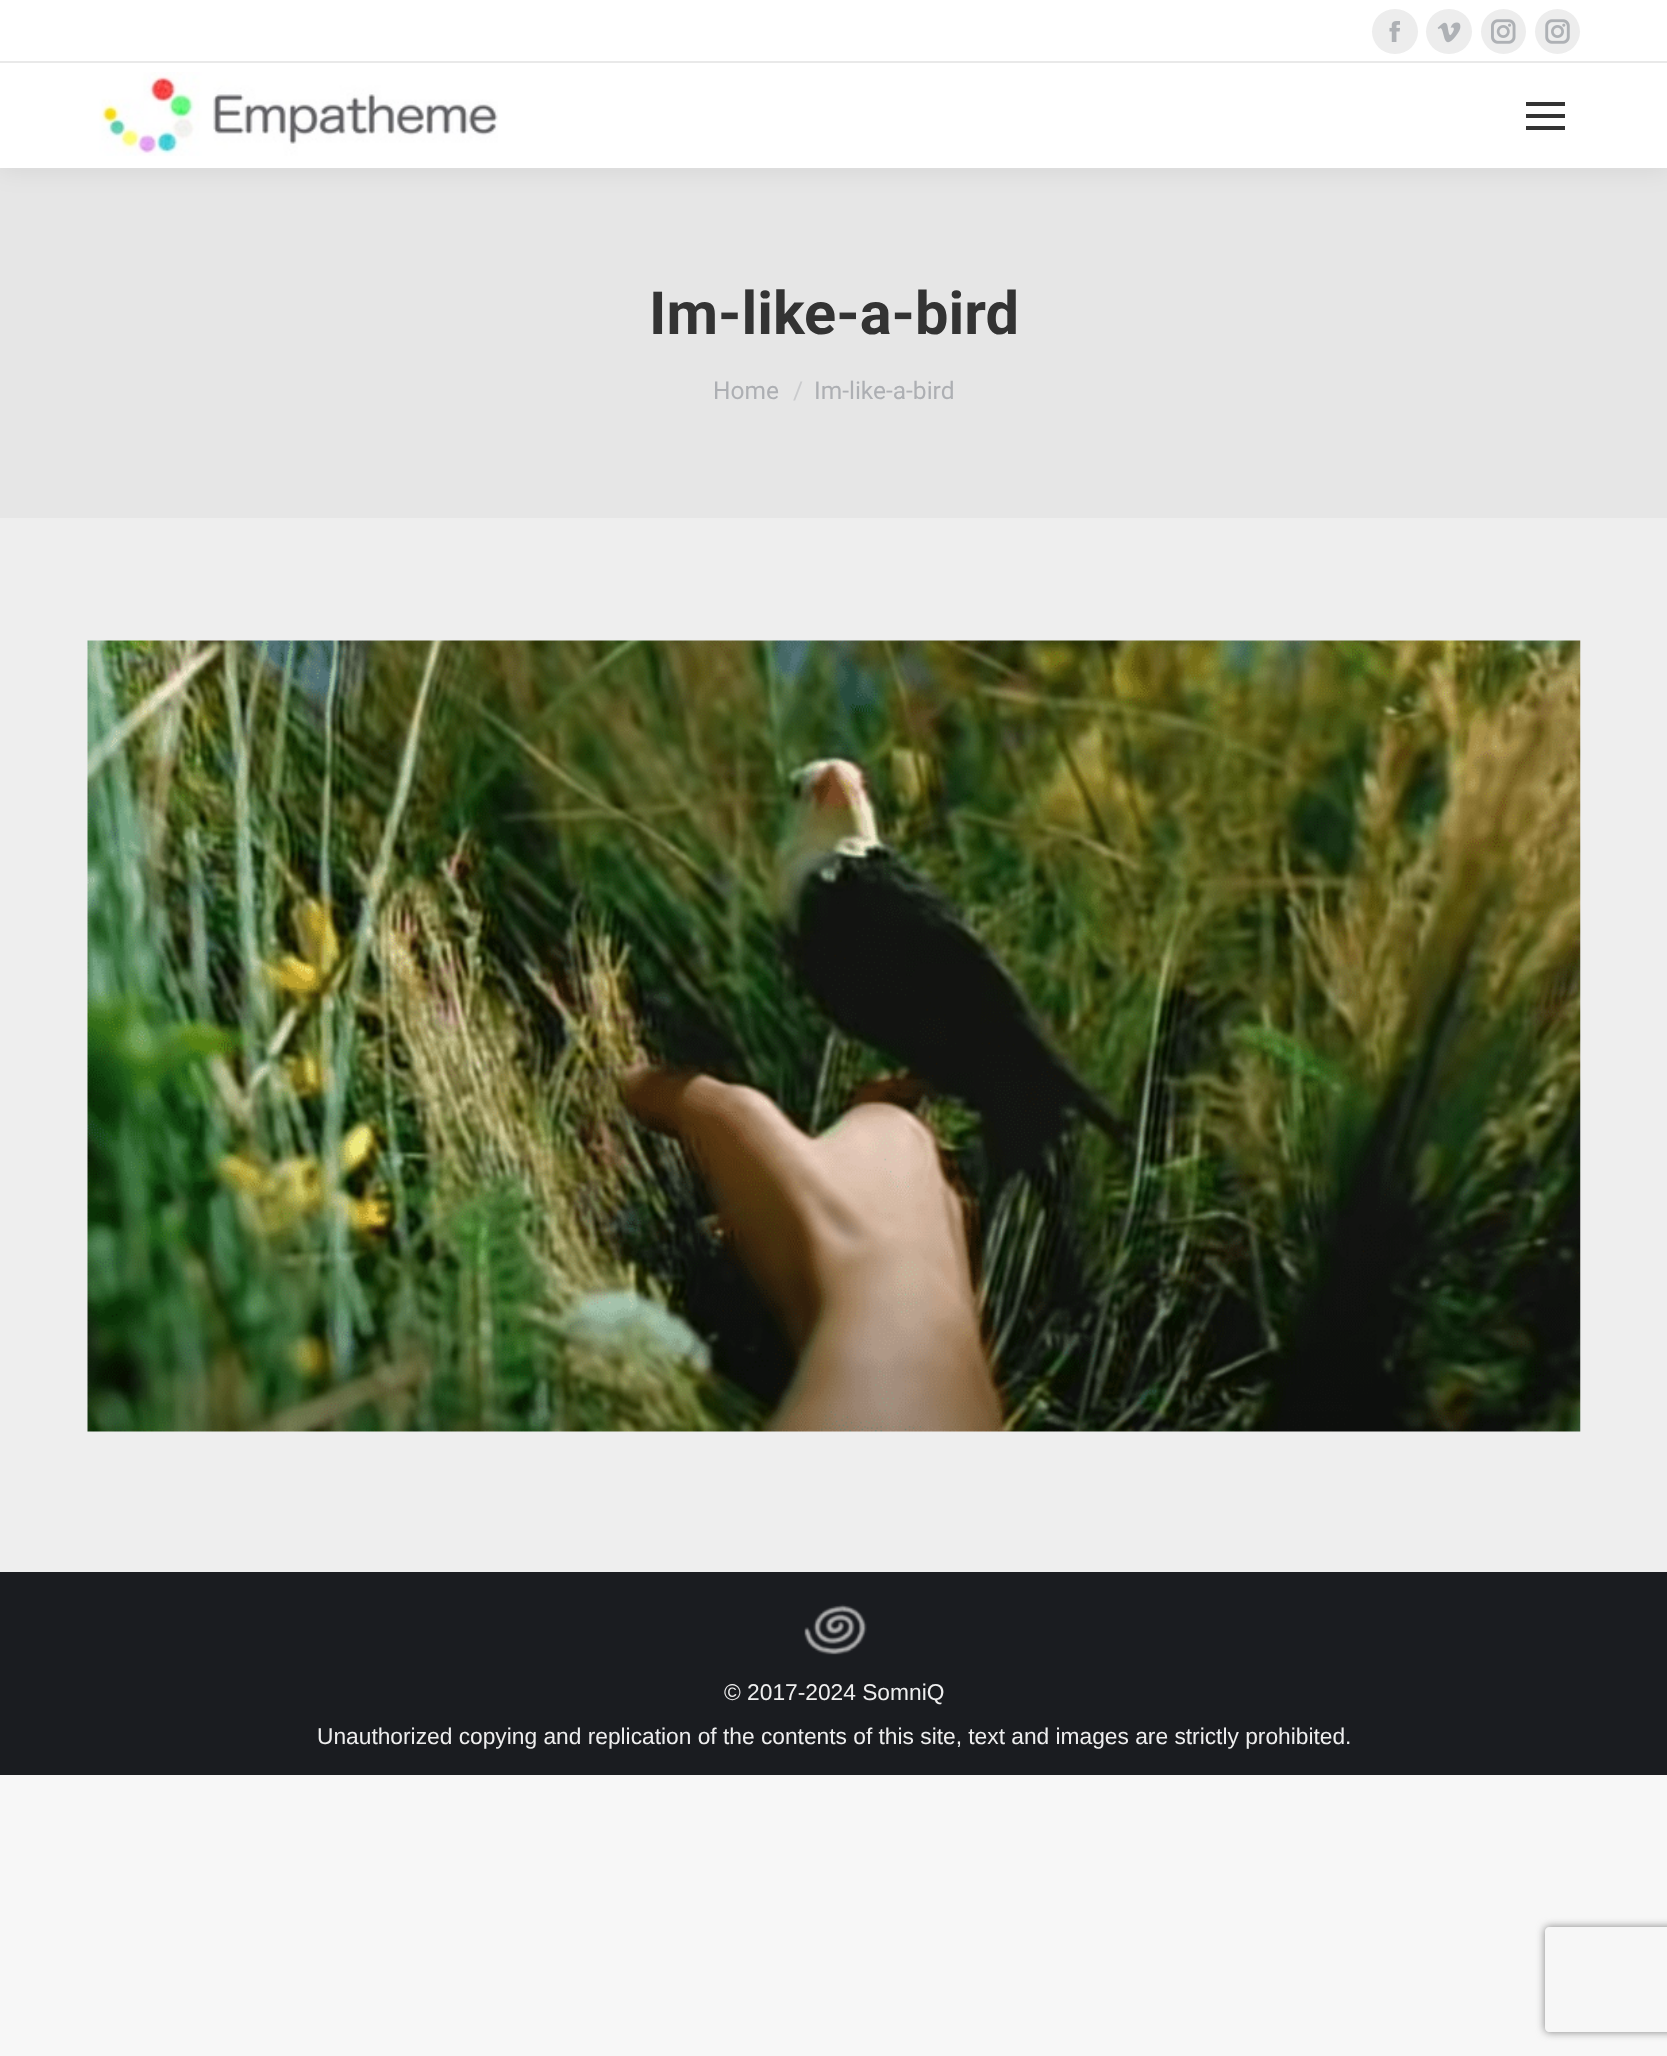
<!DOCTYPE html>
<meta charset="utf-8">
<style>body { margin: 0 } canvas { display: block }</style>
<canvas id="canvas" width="1667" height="2056"></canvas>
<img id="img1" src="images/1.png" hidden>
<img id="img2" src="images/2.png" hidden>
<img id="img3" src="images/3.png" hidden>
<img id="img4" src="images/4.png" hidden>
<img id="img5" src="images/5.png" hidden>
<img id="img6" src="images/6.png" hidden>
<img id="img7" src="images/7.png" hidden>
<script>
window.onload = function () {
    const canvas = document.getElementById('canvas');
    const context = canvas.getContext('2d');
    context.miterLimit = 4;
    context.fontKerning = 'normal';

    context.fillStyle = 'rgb(247, 247, 247)';
    context.fillRect(0, 0, 1667, 2056);
    context.fillStyle = 'rgb(238, 238, 238)';
    context.fillRect(0, 518, 1667, 1054);
    context.fillStyle = 'rgb(230, 230, 230)';
    context.fillRect(0, 168, 1667, 350);
    context.fillStyle = 'rgba(0, 0, 0, 0.07)';
    context.filter = 'blur(13px)';
    context.beginPath();
    context.rect(-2, -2, 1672, 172);
    context.fill();
    context.filter = 'none';
    context.fillStyle = 'rgb(255, 255, 255)';
    context.fillRect(0, 0, 1667, 168);
    context.fillStyle = 'rgb(237, 237, 237)';
    context.beginPath();
    context.roundRect(1372, 9, 46, 45, 22.5);
    context.fill();
    context.drawImage(document.getElementById('img1'), 1389, 21, 11, 21);
    context.beginPath();
    context.roundRect(1426, 9, 46, 45, 22.5);
    context.fill();
    context.drawImage(document.getElementById('img2'), 1437, 22, 24, 21);
    context.beginPath();
    context.arc(1503.5, 31.5, 22.5, 0, 2 * Math.PI);
    context.fill();
    context.drawImage(document.getElementById('img3'), 1491, 19, 25, 25);
    context.beginPath();
    context.arc(1557.5, 31.5, 22.5, 0, 2 * Math.PI);
    context.fill();
    context.drawImage(document.getElementById('img4'), 1545, 19, 25, 25);
    context.fillStyle = 'rgb(233, 233, 233)';
    context.fillRect(0, 61, 1667, 2);
    context.drawImage(document.getElementById('img5'), 99, 72, 399, 84);
    context.fillStyle = 'rgb(51, 51, 51)';
    context.fillRect(1526, 102, 39, 4);
    context.fillRect(1526, 114, 39, 4);
    context.fillRect(1526, 126, 39, 4);
    context.drawImage(document.getElementById('img6'), 87, 640, 1494, 792);
    context.fillStyle = 'rgb(26, 28, 32)';
    context.fillRect(0, 1572, 1667, 203);
    context.drawImage(document.getElementById('img7'), 804, 1604, 63, 51);
    context.save();
    context.beginPath();
    context.moveTo(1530, 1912);
    context.lineTo(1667, 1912);
    context.lineTo(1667, 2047);
    context.lineTo(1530, 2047);
    context.closePath();
    context.moveTo(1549, 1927);
    context.lineTo(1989, 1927);
    context.bezierCurveTo(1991, 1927, 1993, 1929, 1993, 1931);
    context.lineTo(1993, 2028);
    context.bezierCurveTo(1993, 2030, 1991, 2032, 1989, 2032);
    context.lineTo(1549, 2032);
    context.bezierCurveTo(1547, 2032, 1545, 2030, 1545, 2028);
    context.lineTo(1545, 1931);
    context.bezierCurveTo(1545, 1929, 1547, 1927, 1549, 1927);
    context.closePath();
    context.clip('evenodd');
    context.fillStyle = 'rgb(128, 128, 128)';
    context.filter = 'blur(4.5px)';
    context.beginPath();
    context.roundRect(1545, 1927, 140, 105, 4);
    context.fill();
    context.filter = 'none';
    context.restore();
    context.font = 'bold 59.5px Roboto';
    context.fillStyle = 'rgb(51, 51, 51)';
    context.fillText('Im-like-a-bird', 649, 334);
    context.font = '24.5px Roboto';
    context.fillStyle = 'rgb(173, 175, 179)';
    context.fillText('Home', 713, 399);
    context.fillStyle = 'rgb(202, 203, 205)';
    context.fillText('/', 793, 399);
    context.fillStyle = 'rgb(173, 175, 179)';
    context.fillText('Im-like-a-bird', 814, 399);
    context.font = '22.75px Liberation Sans';
    context.fillStyle = 'rgb(238, 238, 238)';
    context.fillText('© 2017-2024 SomniQ', 724, 1700);
    context.fillText('Unauthorized copying and replication of the contents of this site, text and images are strictly prohibited.', 317, 1744);
};
</script>
